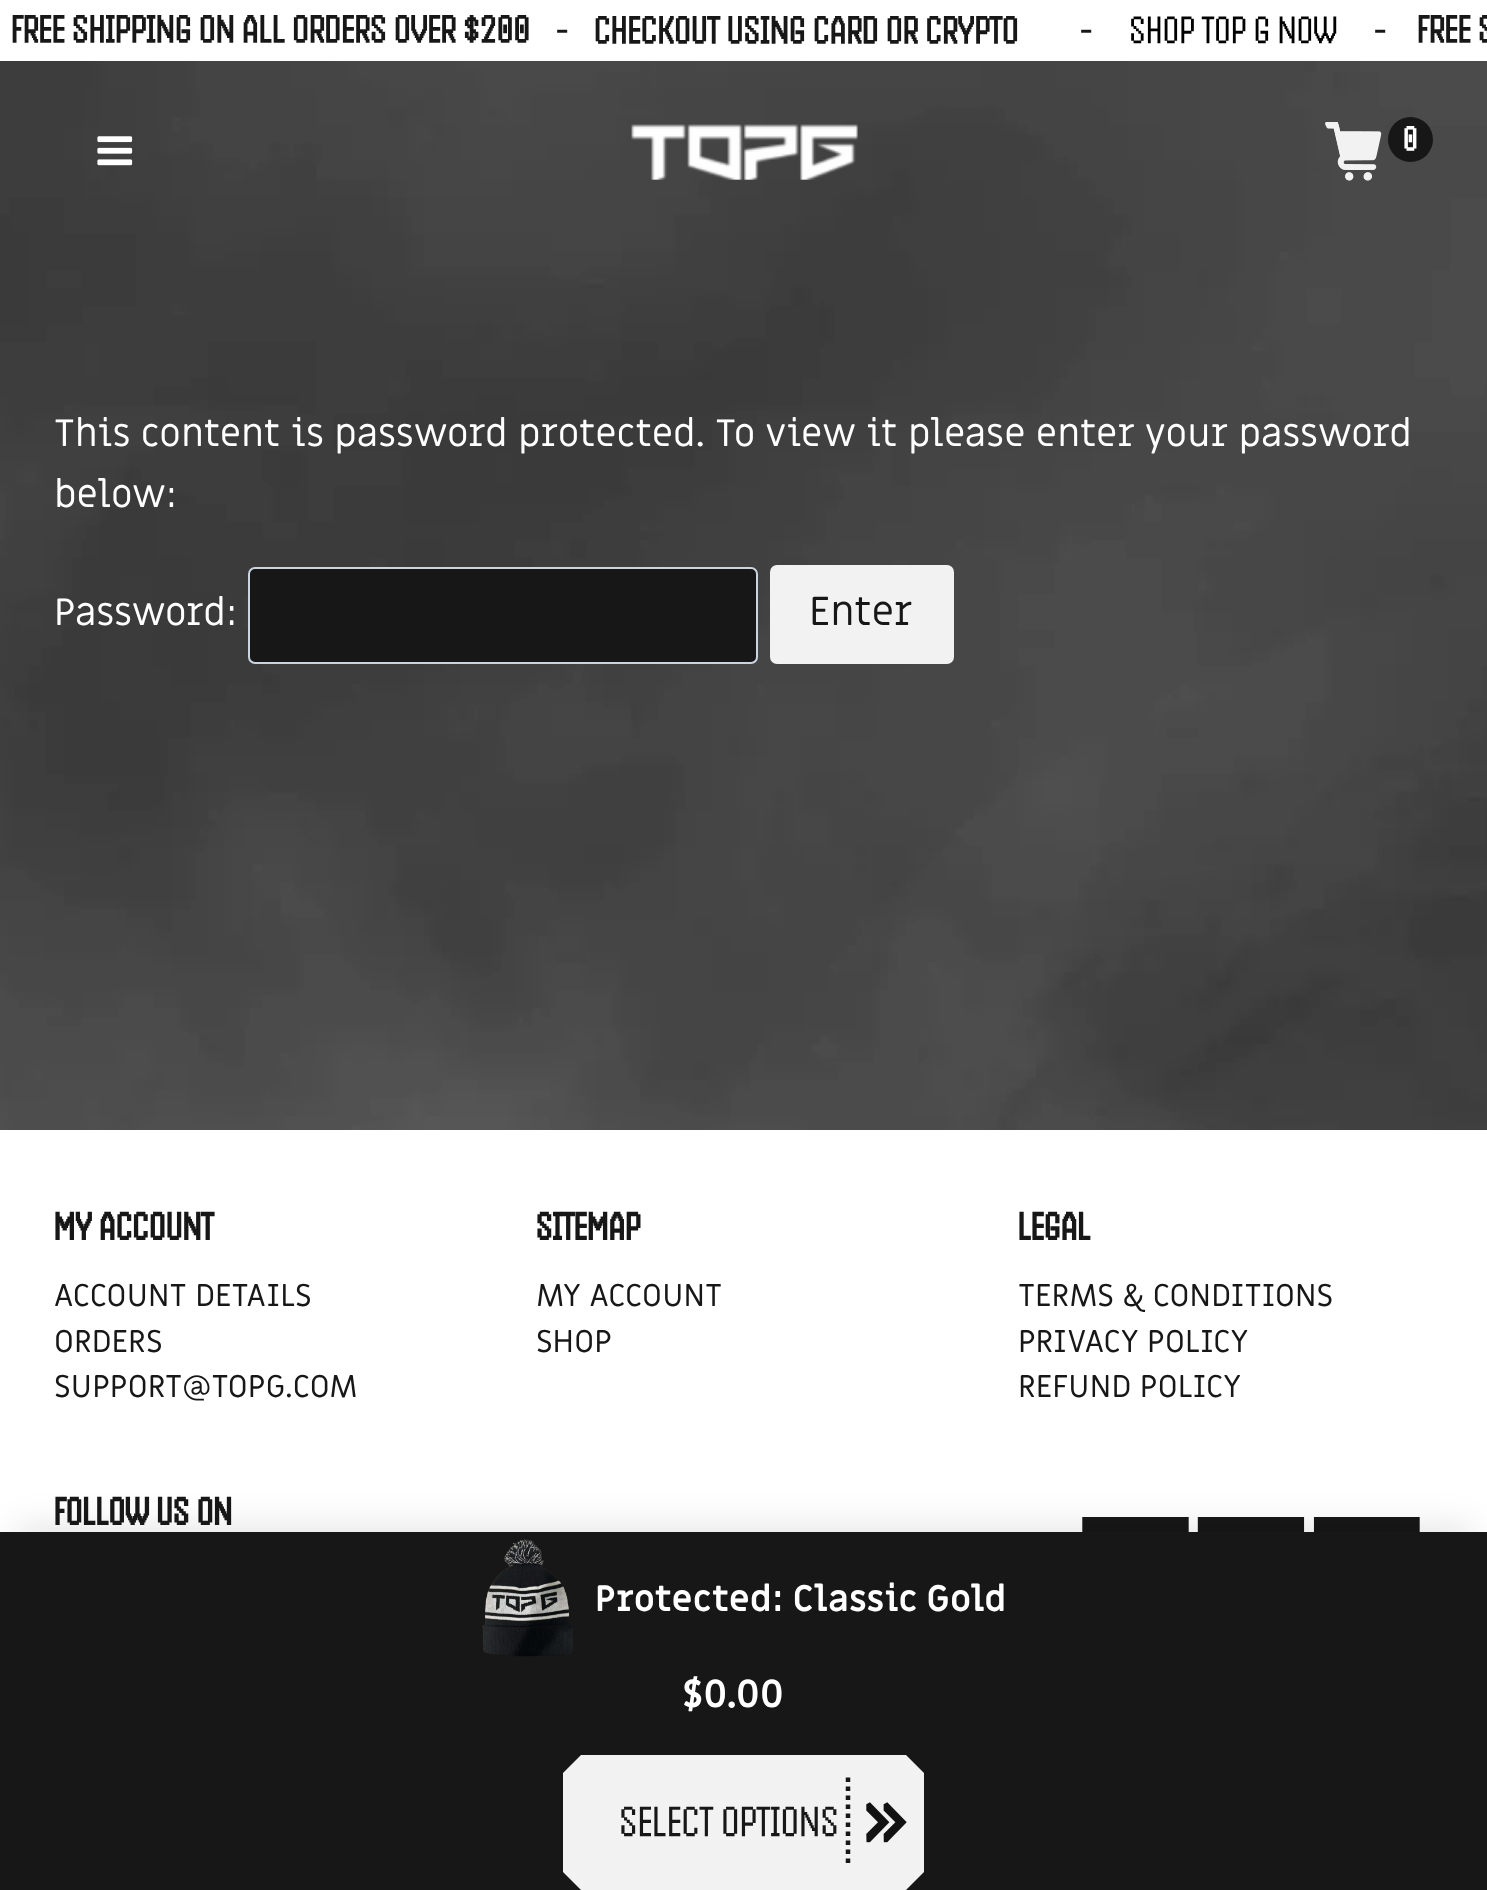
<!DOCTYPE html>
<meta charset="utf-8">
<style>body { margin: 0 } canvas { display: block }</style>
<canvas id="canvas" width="1487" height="1890"></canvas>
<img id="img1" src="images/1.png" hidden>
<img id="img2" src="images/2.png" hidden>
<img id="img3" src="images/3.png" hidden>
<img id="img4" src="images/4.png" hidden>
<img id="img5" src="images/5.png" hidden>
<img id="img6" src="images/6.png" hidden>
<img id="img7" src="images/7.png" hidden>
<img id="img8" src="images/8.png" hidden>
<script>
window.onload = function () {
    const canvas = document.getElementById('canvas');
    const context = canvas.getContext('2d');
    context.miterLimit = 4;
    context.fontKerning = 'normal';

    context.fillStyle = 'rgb(255, 255, 255)';
    context.fillRect(0, 0, 1487, 1890);
    context.drawImage(document.getElementById('img1'), 0, 61, 1487, 1069);
    context.drawImage(document.getElementById('img2'), 97, 136, 36, 30);
    context.drawImage(document.getElementById('img3'), 631, 124, 227, 56);
    context.drawImage(document.getElementById('img4'), 1325, 122, 57, 59);
    context.drawImage(document.getElementById('img5'), 1326, 124, 53, 57);
    context.fillStyle = 'rgb(23, 23, 23)';
    context.beginPath();
    context.arc(1410.5, 139.5, 22.5, 0, 2 * Math.PI);
    context.fill();
    context.beginPath();
    context.roundRect(249, 568, 508, 95, 6);
    context.fill();
    context.strokeStyle = 'rgb(203, 213, 224)';
    context.lineWidth = 2;
    context.stroke();
    context.fillStyle = 'rgb(242, 242, 242)';
    context.beginPath();
    context.roundRect(770, 565, 184, 99, 7);
    context.fill();
    context.drawImage(document.getElementById('img6'), 1082, 1517, 338, 15);
    context.fillStyle = 'rgba(0, 0, 0, 0.1)';
    context.filter = 'blur(17px)';
    context.beginPath();
    context.rect(16, 1526, 1456, 326);
    context.fill();
    context.filter = 'none';
    context.fillStyle = 'rgb(23, 23, 23)';
    context.fillRect(0, 1532, 1487, 358);
    context.drawImage(document.getElementById('img7'), 482, 1539, 91, 118);
    context.fillStyle = 'rgb(242, 242, 242)';
    context.beginPath();
    context.moveTo(581, 1755);
    context.lineTo(563, 1773);
    context.lineTo(563, 1872);
    context.lineTo(581, 1890);
    context.lineTo(906, 1890);
    context.lineTo(924, 1872);
    context.lineTo(924, 1773);
    context.lineTo(906, 1755);
    context.closePath();
    context.fill();
    context.beginPath();
    context.moveTo(848, 1777.5);
    context.lineTo(848, 1867.5);
    context.strokeStyle = 'rgb(23, 23, 23)';
    context.lineWidth = 4.5;
    context.setLineDash([4.5, 4.5]);
    context.stroke();
    context.drawImage(document.getElementById('img8'), 866, 1802, 41, 41);
    context.font = 'bold 40.7px Handjet';
    context.fillStyle = 'rgb(23, 23, 23)';
    context.fillText('FREE SHIPPING ON ALL ORDERS OVER $200', 11, 42);
    context.font = '500 40.7px Handjet';
    context.fillText('-', 555, 42);
    context.font = 'bold 40.7px Handjet';
    context.fillText('CHECKOUT USING CARD OR CRYPTO', 594, 43);
    context.font = '500 40.7px Handjet';
    context.fillText('-', 1079, 42);
    context.fillStyle = 'rgb(0, 0, 0)';
    context.fillText('SHOP TOP G NOW', 1129, 43);
    context.fillStyle = 'rgb(23, 23, 23)';
    context.fillText('-', 1373, 42);
    context.font = 'bold 40.7px Handjet';
    context.fillText('FREE S', 1417, 42);
    context.font = 'bold 36px Handjet';
    context.fillStyle = 'rgb(255, 255, 255)';
    context.fillText('0', 1403, 150);
    context.font = '38.25px Miriam Libre';
    context.fillText('This content is password protected. To view it please enter your password', 54, 446);
    context.fillText('below:', 54, 507);
    context.fillText('Password:', 54, 625);
    context.font = '40.5px Miriam Libre';
    context.fillStyle = 'rgb(23, 23, 23)';
    context.fillText('Enter', 809, 625);
    context.font = '800 40.5px Handjet';
    context.fillText('MY ACCOUNT', 54, 1239);
    context.font = '31.5px Miriam Libre';
    context.fillText('ACCOUNT DETAILS', 54, 1306);
    context.fillText('ORDERS', 54, 1352);
    context.fillText('SUPPORT@TOPG.COM', 54, 1397);
    context.font = '800 40.5px Handjet';
    context.fillText('SITEMAP', 536, 1239);
    context.font = '31.5px Miriam Libre';
    context.fillText('MY ACCOUNT', 536, 1306);
    context.fillText('SHOP', 536, 1352);
    context.font = '800 40.5px Handjet';
    context.fillText('LEGAL', 1018, 1239);
    context.font = '31.5px Miriam Libre';
    context.fillText('TERMS & CONDITIONS', 1018, 1306);
    context.fillText('PRIVACY POLICY', 1018, 1352);
    context.fillText('REFUND POLICY', 1018, 1397);
    context.font = '800 40.5px Handjet';
    context.fillText('FOLLOW US ON', 54, 1524);
    context.font = 'bold 36px Miriam Libre';
    context.fillStyle = 'rgb(255, 255, 255)';
    context.fillText('Protected: Classic Gold', 595, 1611);
    context.font = 'bold 38.25px Miriam Libre';
    context.fillText('$0.00', 682, 1707);
    context.font = '500 45px Handjet';
    context.fillStyle = 'rgb(23, 23, 23)';
    context.fillText('SELECT OPTIONS', 619, 1836);
};
</script>
